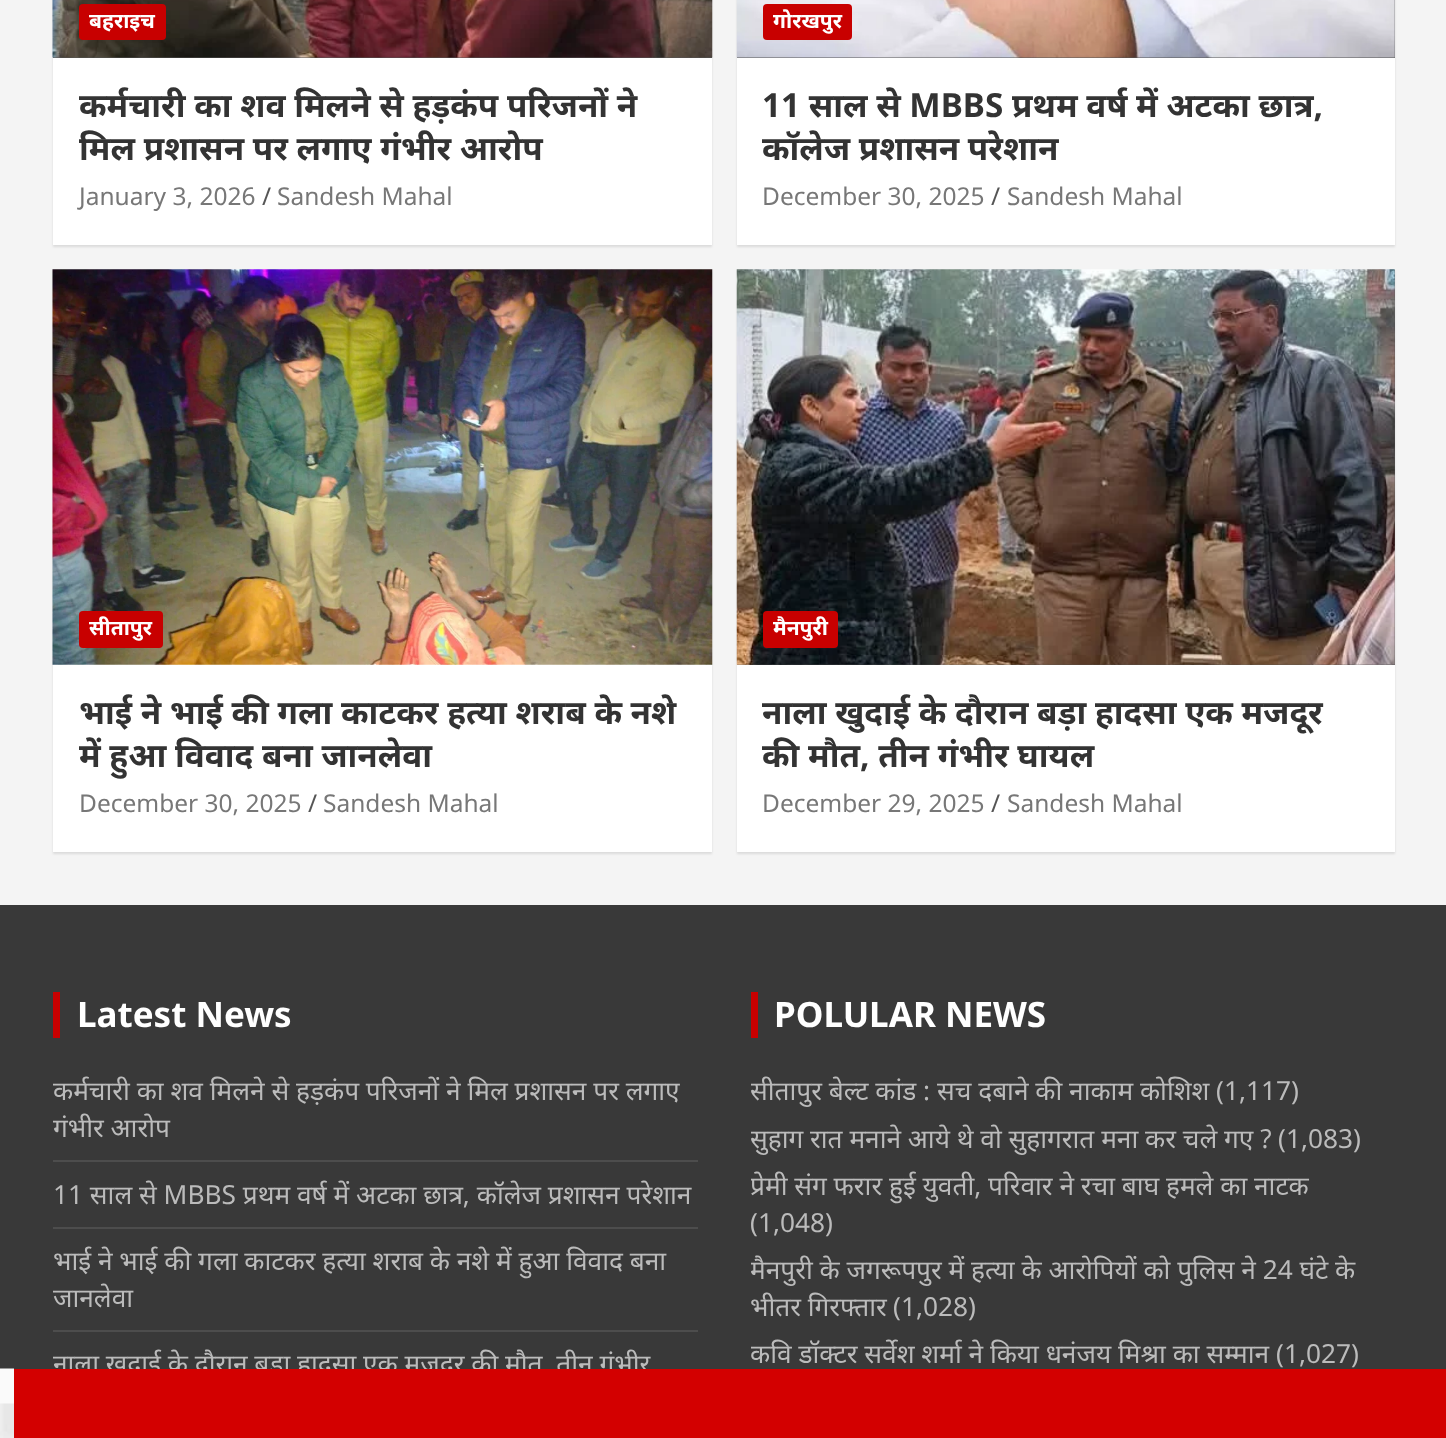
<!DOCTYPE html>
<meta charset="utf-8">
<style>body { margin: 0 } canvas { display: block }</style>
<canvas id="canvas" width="1446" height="1438"></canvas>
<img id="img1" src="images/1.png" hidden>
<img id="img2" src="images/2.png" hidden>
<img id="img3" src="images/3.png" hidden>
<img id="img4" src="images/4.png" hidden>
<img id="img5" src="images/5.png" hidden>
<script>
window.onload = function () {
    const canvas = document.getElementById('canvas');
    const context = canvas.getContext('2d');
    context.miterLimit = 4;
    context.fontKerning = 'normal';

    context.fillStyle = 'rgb(244, 244, 244)';
    context.fillRect(0, 0, 1446, 1438);
    context.fillStyle = 'rgba(0, 0, 0, 0.1)';
    context.filter = 'blur(1px)';
    context.beginPath();
    context.rect(53, -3, 659, 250);
    context.fill();
    context.filter = 'none';
    context.fillStyle = 'rgb(255, 255, 255)';
    context.fillRect(53, 58, 659, 187);
    context.fillStyle = 'rgb(85, 85, 85)';
    context.fillRect(53, 57, 659, 1);
    context.drawImage(document.getElementById('img1'), 52, 0, 661, 58);
    context.fillStyle = 'rgb(200, 0, 0)';
    context.beginPath();
    context.roundRect(79, 4, 87, 36, 4);
    context.fill();
    context.fillStyle = 'rgba(0, 0, 0, 0.1)';
    context.filter = 'blur(1px)';
    context.beginPath();
    context.rect(737, -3, 658, 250);
    context.fill();
    context.filter = 'none';
    context.fillStyle = 'rgb(255, 255, 255)';
    context.fillRect(737, 58, 658, 187);
    context.fillStyle = 'rgb(85, 85, 85)';
    context.fillRect(737, 0, 658, 58);
    context.drawImage(document.getElementById('img2'), 736, 0, 659, 58);
    context.fillStyle = 'rgb(200, 0, 0)';
    context.beginPath();
    context.roundRect(763, 4, 89, 36, 4);
    context.fill();
    context.fillStyle = 'rgba(0, 0, 0, 0.1)';
    context.filter = 'blur(1px)';
    context.beginPath();
    context.rect(53, 271, 659, 583);
    context.fill();
    context.filter = 'none';
    context.fillStyle = 'rgb(255, 255, 255)';
    context.fillRect(53, 664, 659, 188);
    context.drawImage(document.getElementById('img3'), 52, 269, 661, 396);
    context.fillStyle = 'rgb(200, 0, 0)';
    context.beginPath();
    context.roundRect(79, 611, 84, 37, 4);
    context.fill();
    context.fillStyle = 'rgba(0, 0, 0, 0.1)';
    context.filter = 'blur(1px)';
    context.beginPath();
    context.rect(737, 271, 658, 583);
    context.fill();
    context.filter = 'none';
    context.fillStyle = 'rgb(255, 255, 255)';
    context.fillRect(737, 665, 658, 187);
    context.fillStyle = 'rgb(85, 85, 85)';
    context.fillRect(737, 270, 658, 395);
    context.drawImage(document.getElementById('img4'), 736, 269, 659, 396);
    context.fillStyle = 'rgb(200, 0, 0)';
    context.beginPath();
    context.roundRect(763, 611, 75, 37, 4);
    context.fill();
    context.fillStyle = 'rgb(57, 57, 57)';
    context.fillRect(0, 905, 1446, 464);
    context.fillStyle = 'rgb(200, 0, 0)';
    context.fillRect(53, 992, 7, 46);
    context.fillStyle = 'rgb(77, 77, 77)';
    context.fillRect(53, 1160, 645, 2);
    context.fillRect(53, 1227, 645, 2);
    context.fillRect(53, 1330, 645, 2);
    context.fillStyle = 'rgb(200, 0, 0)';
    context.fillRect(751, 992, 7, 46);
    context.drawImage(document.getElementById('img5'), 0, 1368, 14, 70);
    context.font = 'bold 21px Noto Sans';
    context.fillStyle = 'rgb(255, 255, 255)';
    context.fillText('बहराइच', 89, 28);
    context.font = 'bold 33.25px Noto Sans';
    context.fillStyle = 'rgb(51, 51, 51)';
    context.fillText('कर्मचारी का शव मिलने से हड़कंप परिजनों ने', 79, 117);
    context.fillText('मिल प्रशासन पर लगाए गंभीर आरोप', 79, 160);
    context.font = '24.5px Noto Sans';
    context.fillStyle = 'rgb(119, 119, 119)';
    context.fillText('January 3, 2026', 79, 205);
    context.fillStyle = 'rgb(85, 85, 85)';
    context.fillText('/', 262, 205);
    context.fillStyle = 'rgb(119, 119, 119)';
    context.fillText('Sandesh Mahal', 277, 205);
    context.font = 'bold 21px Noto Sans';
    context.fillStyle = 'rgb(255, 255, 255)';
    context.fillText('गोरखपुर', 773, 28);
    context.font = 'bold 33.25px Noto Sans';
    context.fillStyle = 'rgb(51, 51, 51)';
    context.fillText('11 साल से MBBS प्रथम वर्ष में अटका छात्र,', 762, 117);
    context.fillText('कॉलेज प्रशासन परेशान', 762, 160);
    context.font = '24.5px Noto Sans';
    context.fillStyle = 'rgb(119, 119, 119)';
    context.fillText('December 30, 2025', 762, 205);
    context.fillStyle = 'rgb(85, 85, 85)';
    context.fillText('/', 991, 205);
    context.fillStyle = 'rgb(119, 119, 119)';
    context.fillText('Sandesh Mahal', 1007, 205);
    context.font = 'bold 21px Noto Sans';
    context.fillStyle = 'rgb(255, 255, 255)';
    context.fillText('सीतापुर', 89, 635);
    context.font = 'bold 33.25px Noto Sans';
    context.fillStyle = 'rgb(51, 51, 51)';
    context.fillText('भाई ने भाई की गला काटकर हत्या शराब के नशे', 79, 724);
    context.fillText('में हुआ विवाद बना जानलेवा', 79, 767);
    context.font = '24.5px Noto Sans';
    context.fillStyle = 'rgb(119, 119, 119)';
    context.fillText('December 30, 2025', 79, 812);
    context.fillStyle = 'rgb(85, 85, 85)';
    context.fillText('/', 308, 812);
    context.fillStyle = 'rgb(119, 119, 119)';
    context.fillText('Sandesh Mahal', 323, 812);
    context.font = 'bold 21px Noto Sans';
    context.fillStyle = 'rgb(255, 255, 255)';
    context.fillText('मैनपुरी', 773, 635);
    context.font = 'bold 33.25px Noto Sans';
    context.fillStyle = 'rgb(51, 51, 51)';
    context.fillText('नाला खुदाई के दौरान बड़ा हादसा एक मजदूर', 762, 724);
    context.fillText('की मौत, तीन गंभीर घायल', 762, 767);
    context.font = '24.5px Noto Sans';
    context.fillStyle = 'rgb(119, 119, 119)';
    context.fillText('December 29, 2025', 762, 812);
    context.fillStyle = 'rgb(85, 85, 85)';
    context.fillText('/', 991, 812);
    context.fillStyle = 'rgb(119, 119, 119)';
    context.fillText('Sandesh Mahal', 1007, 812);
    context.font = 'bold 35px Noto Sans';
    context.fillStyle = 'rgb(255, 255, 255)';
    context.fillText('Latest News', 77, 1027);
    context.save();
    context.beginPath();
    context.rect(53, 1073, 645, 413);
    context.clip();
    context.font = '26.25px Noto Sans';
    context.fillStyle = 'rgb(187, 187, 187)';
    context.fillText('कर्मचारी का शव मिलने से हड़कंप परिजनों ने मिल प्रशासन पर लगाए', 53, 1100);
    context.fillText('गंभीर आरोप', 53, 1137);
    context.restore();
    context.font = '26.25px Noto Sans';
    context.fillStyle = 'rgb(187, 187, 187)';
    context.fillText('11 साल से MBBS प्रथम वर्ष में अटका छात्र, कॉलेज प्रशासन परेशान', 53, 1204);
    context.save();
    context.beginPath();
    context.rect(53, 1073, 645, 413);
    context.clip();
    context.fillText('भाई ने भाई की गला काटकर हत्या शराब के नशे में हुआ विवाद बना', 53, 1270);
    context.fillText('जानलेवा', 53, 1307);
    context.fillText('नाला खुदाई के दौरान बड़ा हादसा एक मजदूर की मौत, तीन गंभीर', 53, 1373);
    context.restore();
    context.font = 'bold 35px Noto Sans';
    context.fillStyle = 'rgb(255, 255, 255)';
    context.fillText('POLULAR NEWS', 774, 1027);
    context.save();
    context.beginPath();
    context.rect(751, 1073, 644, 299);
    context.clip();
    context.font = '26.25px Noto Sans';
    context.fillStyle = 'rgb(187, 187, 187)';
    context.fillText('सीतापुर बेल्ट कांड : सच दबाने की नाकाम कोशिश', 750, 1100);
    context.restore();
    context.font = '26.25px Noto Sans';
    context.fillStyle = 'rgb(187, 187, 187)';
    context.fillText('(1,117)', 1216, 1100);
    context.save();
    context.beginPath();
    context.rect(751, 1073, 644, 299);
    context.clip();
    context.fillText('सुहाग रात मनाने आये थे वो सुहागरात मना कर चले गए ?', 750, 1148);
    context.restore();
    context.fillText('(1,083)', 1278, 1148);
    context.save();
    context.beginPath();
    context.rect(751, 1073, 644, 299);
    context.clip();
    context.fillText('प्रेमी संग फरार हुई युवती, परिवार ने रचा बाघ हमले का नाटक', 750, 1195);
    context.restore();
    context.fillText('(1,048)', 750, 1232);
    context.save();
    context.beginPath();
    context.rect(751, 1073, 644, 299);
    context.clip();
    context.fillText('मैनपुरी के जगरूपपुर में हत्या के आरोपियों को पुलिस ने 24 घंटे के', 750, 1279);
    context.fillText('भीतर गिरफ्तार', 750, 1316);
    context.restore();
    context.fillText('(1,028)', 893, 1316);
    context.save();
    context.beginPath();
    context.rect(751, 1073, 644, 299);
    context.clip();
    context.fillText('कवि डॉक्टर सर्वेश शर्मा ने किया धनंजय मिश्रा का सम्मान', 750, 1363);
    context.restore();
    context.fillText('(1,027)', 1276, 1363);
    context.fillStyle = 'rgb(211, 0, 0)';
    context.fillRect(14, 1369, 1432, 69);
};
</script>
